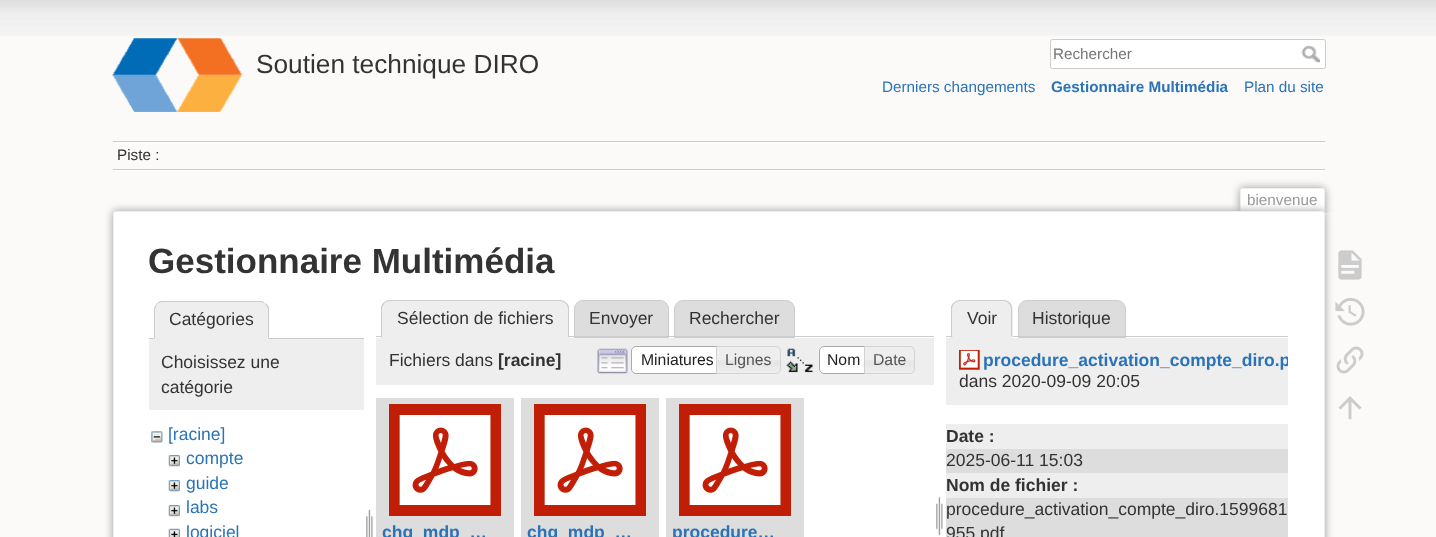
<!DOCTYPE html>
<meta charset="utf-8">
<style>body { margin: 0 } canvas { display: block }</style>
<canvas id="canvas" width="1436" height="537"></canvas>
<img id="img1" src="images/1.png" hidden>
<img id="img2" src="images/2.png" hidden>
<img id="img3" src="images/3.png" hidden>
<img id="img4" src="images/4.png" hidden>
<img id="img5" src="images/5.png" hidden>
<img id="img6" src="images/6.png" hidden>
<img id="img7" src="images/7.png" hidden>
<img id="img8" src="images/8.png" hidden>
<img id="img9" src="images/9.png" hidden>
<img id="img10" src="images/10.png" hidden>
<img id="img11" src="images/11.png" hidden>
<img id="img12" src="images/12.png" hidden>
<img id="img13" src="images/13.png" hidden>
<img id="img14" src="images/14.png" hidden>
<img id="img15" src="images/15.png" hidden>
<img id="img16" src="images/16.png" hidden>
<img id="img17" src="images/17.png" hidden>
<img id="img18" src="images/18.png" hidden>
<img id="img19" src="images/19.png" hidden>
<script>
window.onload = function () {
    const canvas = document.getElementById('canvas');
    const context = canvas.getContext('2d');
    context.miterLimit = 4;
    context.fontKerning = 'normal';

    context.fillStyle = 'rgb(251, 250, 249)';
    context.fillRect(0, 0, 1436, 537);
    context.drawImage(document.getElementById('img1'), 0, 0, 1436, 36);
    context.drawImage(document.getElementById('img2'), 112, 38, 130, 74);
    context.fillStyle = 'rgb(255, 255, 255)';
    context.beginPath();
    context.roundRect(1050.5, 39.5, 275, 29, 2);
    context.fill();
    context.strokeStyle = 'rgb(204, 204, 204)';
    context.stroke();
    context.drawImage(document.getElementById('img3'), 1301, 45, 19, 18);
    context.fillStyle = 'rgb(204, 204, 204)';
    context.fillRect(113, 141, 1212, 1);
    context.fillStyle = 'rgb(255, 255, 255)';
    context.fillRect(113, 170, 1212, 1);
    context.fillRect(113, 143, 1212, 1);
    context.fillStyle = 'rgb(204, 204, 204)';
    context.fillRect(113, 169, 1212, 1);
    context.save();
    context.beginPath();
    context.rect(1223, 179, 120, 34);
    context.clip();
    context.fillStyle = 'rgb(153, 153, 153)';
    context.filter = 'blur(4px)';
    context.beginPath();
    context.roundRect(1240, 188, 85, 25, 2.5);
    context.fill();
    context.filter = 'none';
    context.restore();
    context.fillStyle = 'rgb(255, 255, 255)';
    context.beginPath();
    context.roundRect(1241, 189, 83, 24, [1, 1, 0, 0]);
    context.fill();
    context.fillStyle = 'rgb(238, 238, 238)';
    context.fillRect(1241, 188, 83, 1);
    context.fillRect(1324, 189, 1, 24);
    context.fillRect(1240, 189, 1, 24);
    context.fillStyle = 'rgb(153, 153, 153)';
    context.filter = 'blur(4.5px)';
    context.beginPath();
    context.roundRect(113, 211, 1212, 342, 2.5);
    context.fill();
    context.filter = 'none';
    context.fillStyle = 'rgb(255, 255, 255)';
    context.beginPath();
    context.roundRect(113.5, 211.5, 1211, 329, 2);
    context.fill();
    context.strokeStyle = 'rgb(238, 238, 238)';
    context.stroke();
    context.fillStyle = 'rgb(204, 204, 204)';
    context.fillRect(149, 338, 215, 1);
    context.fillStyle = 'rgb(238, 238, 238)';
    context.beginPath();
    context.roundRect(154, 301, 115, 38, [9, 9, 0, 0]);
    context.fill();
    context.fillStyle = 'rgb(204, 204, 204)';
    context.beginPath();
    context.moveTo(162, 302);
    context.bezierCurveTo(160, 302, 158, 303, 157, 304);
    context.lineTo(156, 304);
    context.lineTo(160, 301);
    context.lineTo(262, 301);
    context.lineTo(266, 304);
    context.bezierCurveTo(264, 303, 262, 302, 260, 302);
    context.closePath();
    context.fill();
    context.beginPath();
    context.moveTo(266.5, 303.5);
    context.bezierCurveTo(267.5, 305, 268.5, 306, 269, 308);
    context.lineTo(269, 339);
    context.lineTo(268, 338);
    context.lineTo(268, 310);
    context.bezierCurveTo(268, 308, 267, 306, 265.5, 304.5);
    context.closePath();
    context.fill();
    context.fillStyle = 'rgb(238, 238, 238)';
    context.beginPath();
    context.moveTo(269, 339);
    context.lineTo(154, 339);
    context.lineTo(155, 338);
    context.lineTo(268, 338);
    context.closePath();
    context.fill();
    context.fillStyle = 'rgb(204, 204, 204)';
    context.beginPath();
    context.moveTo(154, 338.5);
    context.lineTo(154, 310);
    context.bezierCurveTo(154, 307.5, 155, 305.5, 156.5, 304);
    context.lineTo(157, 304.5);
    context.bezierCurveTo(156, 306, 155, 308, 155, 310);
    context.lineTo(155, 337.5);
    context.closePath();
    context.fill();
    context.fillStyle = 'rgb(238, 238, 238)';
    context.fillRect(149, 339, 215, 71);
    context.drawImage(document.getElementById('img4'), 151, 431, 12, 12);
    context.drawImage(document.getElementById('img5'), 168, 455, 12, 12);
    context.drawImage(document.getElementById('img5'), 168, 480, 12, 12);
    context.drawImage(document.getElementById('img5'), 168, 505, 12, 12);
    context.drawImage(document.getElementById('img6'), 168, 528, 12, 9);
    context.drawImage(document.getElementById('img7'), 366, 509, 7, 28);
    context.fillStyle = 'rgb(221, 221, 221)';
    context.beginPath();
    context.roundRect(574.5, 300.5, 94, 37, [8.5, 8.5, 0, 0]);
    context.fill();
    context.strokeStyle = 'rgb(204, 204, 204)';
    context.stroke();
    context.beginPath();
    context.roundRect(674.5, 300.5, 120, 37, [8.5, 8.5, 0, 0]);
    context.fill();
    context.stroke();
    context.fillStyle = 'rgb(204, 204, 204)';
    context.fillRect(376, 336, 558, 1);
    context.fillStyle = 'rgb(238, 238, 238)';
    context.beginPath();
    context.roundRect(381, 300, 188, 38, [9, 9, 0, 0]);
    context.fill();
    context.fillStyle = 'rgb(204, 204, 204)';
    context.beginPath();
    context.moveTo(390, 300);
    context.bezierCurveTo(388, 300, 385, 301, 384, 303);
    context.lineTo(385, 303);
    context.bezierCurveTo(386, 302, 388, 301, 390, 301);
    context.lineTo(560, 301);
    context.bezierCurveTo(562, 301, 564, 302, 565, 303);
    context.lineTo(566, 303);
    context.bezierCurveTo(565, 301, 562, 300, 560, 300);
    context.closePath();
    context.fill();
    context.beginPath();
    context.moveTo(566, 302.5);
    context.bezierCurveTo(567.5, 303.5, 568.5, 305, 569, 307);
    context.lineTo(569, 337.5);
    context.lineTo(567, 336);
    context.lineTo(568, 336);
    context.lineTo(568, 309);
    context.bezierCurveTo(568, 307, 567, 305, 565.5, 303.5);
    context.closePath();
    context.fill();
    context.fillStyle = 'rgb(238, 238, 238)';
    context.beginPath();
    context.moveTo(569, 338);
    context.lineTo(567, 336);
    context.lineTo(383, 336);
    context.lineTo(381, 338);
    context.closePath();
    context.fill();
    context.fillStyle = 'rgb(204, 204, 204)';
    context.beginPath();
    context.moveTo(381, 337.5);
    context.lineTo(381, 307);
    context.bezierCurveTo(381.5, 305, 382.5, 303.5, 384, 302.5);
    context.lineTo(384.5, 303.5);
    context.bezierCurveTo(383, 305, 382, 307, 382, 309);
    context.lineTo(382, 336);
    context.lineTo(383, 336);
    context.closePath();
    context.fill();
    context.fillStyle = 'rgb(238, 238, 238)';
    context.fillRect(376, 338, 558, 47);
    context.drawImage(document.getElementById('img8'), 597, 348, 31, 26);
    context.fillStyle = 'rgb(255, 255, 255)';
    context.beginPath();
    context.roundRect(631.5, 346.5, 91, 27, [4.5, 0, 0, 4.5]);
    context.fill();
    context.strokeStyle = 'rgb(170, 170, 170)';
    context.stroke();
    context.drawImage(document.getElementById('img9'), 717, 346, 64, 28);
    context.beginPath();
    context.roundRect(716.5, 346.5, 64, 27, [0, 4.5, 4.5, 0]);
    context.strokeStyle = 'rgb(211, 211, 211)';
    context.stroke();
    context.drawImage(document.getElementById('img10'), 786, 348, 27, 25);
    context.beginPath();
    context.roundRect(819, 346, 51, 28, [5, 0, 0, 5]);
    context.fill();
    context.drawImage(document.getElementById('img11'), 819, 348, 2, 25);
    context.beginPath();
    context.roundRect(819.5, 346.5, 50, 27, [4.5, 0, 0, 4.5]);
    context.strokeStyle = 'rgb(170, 170, 170)';
    context.stroke();
    context.drawImage(document.getElementById('img12'), 865, 347, 50, 27);
    context.beginPath();
    context.roundRect(864.5, 346.5, 50, 27, [0, 4.5, 4.5, 0]);
    context.strokeStyle = 'rgb(211, 211, 211)';
    context.stroke();
    context.fillStyle = 'rgb(221, 221, 221)';
    context.fillRect(376, 398, 138, 139);
    context.drawImage(document.getElementById('img13'), 389, 404, 112, 112);
    context.fillRect(521, 398, 138, 139);
    context.drawImage(document.getElementById('img13'), 534, 404, 112, 112);
    context.fillRect(666, 398, 138, 139);
    context.drawImage(document.getElementById('img13'), 679, 404, 112, 112);
    context.drawImage(document.getElementById('img14'), 936, 496, 7, 40);
    context.beginPath();
    context.roundRect(1018.5, 300.5, 107, 37, [8.5, 8.5, 0, 0]);
    context.fill();
    context.strokeStyle = 'rgb(204, 204, 204)';
    context.stroke();
    context.fillStyle = 'rgb(204, 204, 204)';
    context.fillRect(946, 336, 342, 1);
    context.fillStyle = 'rgb(238, 238, 238)';
    context.beginPath();
    context.roundRect(951, 300, 62, 38, [9, 9, 0, 0]);
    context.fill();
    context.fillStyle = 'rgb(204, 204, 204)';
    context.beginPath();
    context.moveTo(960, 300);
    context.bezierCurveTo(958, 300, 955, 301, 954, 303);
    context.lineTo(955, 303);
    context.bezierCurveTo(956, 302, 958, 301, 960, 301);
    context.lineTo(1004, 301);
    context.bezierCurveTo(1006, 301, 1008, 302, 1009, 304);
    context.lineTo(1010, 303);
    context.bezierCurveTo(1008, 301, 1006, 300, 1004, 300);
    context.closePath();
    context.fill();
    context.beginPath();
    context.moveTo(1010, 302.5);
    context.bezierCurveTo(1011, 304, 1012, 306.5, 1012, 309);
    context.lineTo(1012, 337);
    context.lineTo(1011, 336);
    context.lineTo(1011, 309);
    context.bezierCurveTo(1011, 307, 1010, 305, 1009, 303.5);
    context.closePath();
    context.fill();
    context.fillStyle = 'rgb(238, 238, 238)';
    context.beginPath();
    context.moveTo(1012, 337);
    context.lineTo(1012, 338);
    context.lineTo(951, 338);
    context.lineTo(953, 336);
    context.lineTo(1011, 336);
    context.closePath();
    context.fill();
    context.fillStyle = 'rgb(204, 204, 204)';
    context.beginPath();
    context.moveTo(951, 337.5);
    context.lineTo(951, 307);
    context.bezierCurveTo(951.5, 305, 952.5, 303.5, 954, 302.5);
    context.lineTo(954.5, 303.5);
    context.bezierCurveTo(953, 305, 952, 307, 952, 309);
    context.lineTo(952, 336);
    context.lineTo(953, 336);
    context.closePath();
    context.fill();
    context.fillStyle = 'rgb(238, 238, 238)';
    context.fillRect(946, 338, 342, 67);
    context.drawImage(document.getElementById('img15'), 959, 350, 21, 20);
    context.fillRect(946, 424, 342, 25);
    context.fillStyle = 'rgb(221, 221, 221)';
    context.fillRect(946, 449, 342, 24);
    context.fillStyle = 'rgb(238, 238, 238)';
    context.fillRect(946, 473, 342, 25);
    context.fillStyle = 'rgb(221, 221, 221)';
    context.fillRect(946, 498, 342, 39);
    context.drawImage(document.getElementById('img16'), 1338, 250, 24, 30);
    context.drawImage(document.getElementById('img17'), 1335, 298, 30, 28);
    context.drawImage(document.getElementById('img18'), 1336, 346, 28, 28);
    context.drawImage(document.getElementById('img19'), 1338, 396, 24, 24);
    context.font = '26.25px Liberation Sans';
    context.fillStyle = 'rgb(51, 51, 51)';
    context.fillText('Soutien technique DIRO', 256, 73);
    context.font = '15.25px Liberation Sans';
    context.fillStyle = 'rgb(117, 117, 117)';
    context.fillText('Rechercher', 1053, 59);
    context.fillStyle = 'rgb(43, 115, 183)';
    context.fillText('Derniers changements', 882, 92);
    context.font = 'bold 15.25px Liberation Sans';
    context.fillText('Gestionnaire Multimédia', 1051, 92);
    context.font = '15.25px Liberation Sans';
    context.fillText('Plan du site', 1244, 92);
    context.fillStyle = 'rgb(51, 51, 51)';
    context.fillText('Piste :', 117, 160);
    context.fillStyle = 'rgb(153, 153, 153)';
    context.fillText('bienvenue', 1247, 205);
    context.font = 'bold 35px Liberation Sans';
    context.fillStyle = 'rgb(51, 51, 51)';
    context.fillText('Gestionnaire Multimédia', 148, 273);
    context.font = '17.5px Liberation Sans';
    context.fillText('Catégories', 169, 325);
    context.fillText('Choisissez une', 161, 368);
    context.fillText('catégorie', 161, 393);
    context.fillStyle = 'rgb(43, 115, 183)';
    context.fillText('[racine]', 168, 440);
    context.fillText('compte', 186, 464);
    context.fillText('guide', 186, 489);
    context.fillText('labs', 186, 513);
    context.fillText('logiciel', 186, 538);
    context.fillStyle = 'rgb(51, 51, 51)';
    context.fillText('Sélection de fichiers', 397, 324);
    context.fillText('Envoyer', 589, 324);
    context.fillText('Rechercher', 689, 324);
    context.fillText('Fichiers dans', 389, 366);
    context.font = 'bold 17.5px Liberation Sans';
    context.fillText('[racine]', 498, 366);
    context.font = '15.75px Liberation Sans';
    context.fillStyle = 'rgb(33, 33, 33)';
    context.fillText('Miniatures', 641, 365);
    context.fillStyle = 'rgb(85, 85, 85)';
    context.fillText('Lignes', 725, 365);
    context.fillStyle = 'rgb(33, 33, 33)';
    context.fillText('Nom', 827, 365);
    context.fillStyle = 'rgb(85, 85, 85)';
    context.fillText('Date', 873, 365);
    context.font = 'bold 17.5px Liberation Sans';
    context.fillStyle = 'rgb(43, 115, 183)';
    context.fillText('chg_mdp_…', 382, 538);
    context.fillText('chg_mdp_…', 527, 538);
    context.fillText('procedure…', 672, 538);
    context.font = '17.5px Liberation Sans';
    context.fillStyle = 'rgb(51, 51, 51)';
    context.fillText('Voir', 967, 324);
    context.fillText('Historique', 1032, 324);
    context.save();
    context.beginPath();
    context.rect(946, 338, 342, 67);
    context.clip();
    context.font = 'bold 17.5px Liberation Sans';
    context.fillStyle = 'rgb(43, 115, 183)';
    context.fillText('procedure_activation_compte_diro.p', 983, 366);
    context.restore();
    context.fillText('dans 2020-09-09 20:05', 959, 387);
    context.font = 'bold 17.5px Liberation Sans';
    context.fillText('Date :', 946, 442);
    context.font = '17.5px Liberation Sans';
    context.fillText('2025-06-11 15:03', 946, 466);
    context.font = 'bold 17.5px Liberation Sans';
    context.fillText('Nom de fichier :', 946, 491);
    context.font = '17.5px Liberation Sans';
    context.fillText('procedure_activation_compte_diro.1599681', 946, 515);
    context.fillText('955.pdf', 946, 539);
};
</script>
